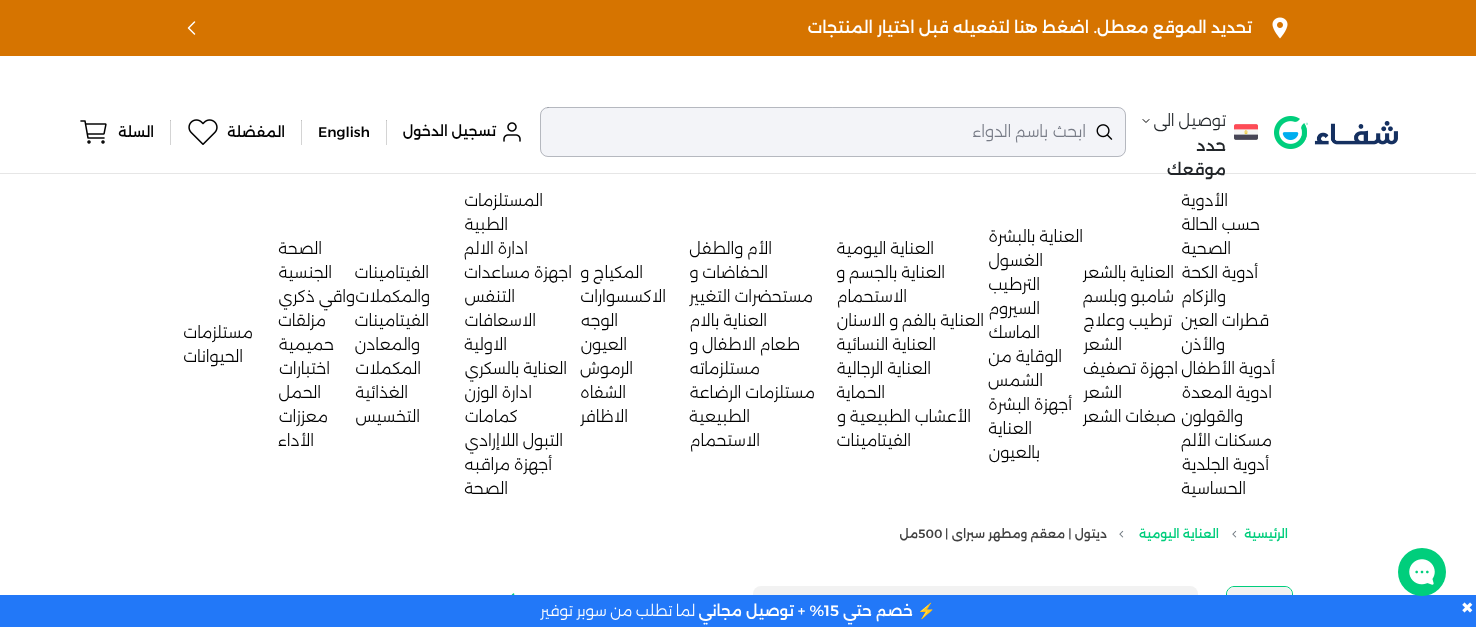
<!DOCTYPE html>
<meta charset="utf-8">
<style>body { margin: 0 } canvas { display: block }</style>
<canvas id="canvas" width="1476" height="627"></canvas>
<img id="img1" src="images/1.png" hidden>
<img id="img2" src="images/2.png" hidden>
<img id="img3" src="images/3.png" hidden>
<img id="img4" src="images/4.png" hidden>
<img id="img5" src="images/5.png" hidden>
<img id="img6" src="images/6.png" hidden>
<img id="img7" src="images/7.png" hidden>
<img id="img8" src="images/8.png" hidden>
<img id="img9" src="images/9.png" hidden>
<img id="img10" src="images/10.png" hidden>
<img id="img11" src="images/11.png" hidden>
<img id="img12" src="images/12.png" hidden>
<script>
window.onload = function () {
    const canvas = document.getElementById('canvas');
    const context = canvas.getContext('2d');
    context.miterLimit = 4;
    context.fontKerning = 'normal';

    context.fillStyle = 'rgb(255, 255, 255)';
    context.fillRect(0, 0, 1476, 627);
    context.fillStyle = 'rgb(230, 230, 230)';
    context.fillRect(0, 173, 1476, 1);
    context.fillStyle = 'rgb(214, 116, 0)';
    context.fillRect(0, 0, 1476, 56);
    context.drawImage(document.getElementById('img1'), 1272, 17, 16, 22);
    context.beginPath();
    context.moveTo(194.5, 34);
    context.lineTo(188.5, 28);
    context.lineTo(194.5, 22);
    context.strokeStyle = 'rgb(255, 255, 255)';
    context.lineWidth = 1.5;
    context.lineCap = 'round';
    context.lineJoin = 'round';
    context.stroke();
    context.drawImage(document.getElementById('img2'), 1274, 116, 124, 33);
    context.drawImage(document.getElementById('img3'), 1234, 124, 24, 16);
    context.beginPath();
    context.moveTo(1143, 119.5);
    context.lineTo(1146, 122.5);
    context.lineTo(1149, 119.5);
    context.strokeStyle = 'rgb(0, 0, 0)';
    context.lineWidth = 1;
    context.stroke();
    context.fillStyle = 'rgb(243, 244, 248)';
    context.beginPath();
    context.roundRect(540, 107, 586, 50, 8);
    context.fill();
    context.beginPath();
    context.roundRect(540.5, 107.5, 585, 49, 7.5);
    context.strokeStyle = 'rgba(119, 123, 134, 0.5)';
    context.lineJoin = 'miter';
    context.stroke();
    context.drawImage(document.getElementById('img4'), 1096, 124, 17, 16);
    context.drawImage(document.getElementById('img5'), 503, 122, 18, 20);
    context.fillStyle = 'rgb(212, 212, 212)';
    context.fillRect(386, 120, 1, 25);
    context.fillStyle = 'rgb(191, 191, 191)';
    context.fillRect(386, 120, 1, 1);
    context.fillStyle = 'rgb(212, 212, 212)';
    context.fillRect(301, 120, 1, 25);
    context.fillStyle = 'rgb(191, 191, 191)';
    context.fillRect(301, 120, 1, 1);
    context.drawImage(document.getElementById('img6'), 188, 119, 30, 26);
    context.fillStyle = 'rgb(212, 212, 212)';
    context.fillRect(170, 120, 1, 25);
    context.fillStyle = 'rgb(191, 191, 191)';
    context.fillRect(170, 120, 1, 1);
    context.drawImage(document.getElementById('img7'), 80, 120, 27, 24);
    context.drawImage(document.getElementById('img8'), 1232, 530, 5, 8);
    context.drawImage(document.getElementById('img8'), 1119, 530, 5, 8);
    context.beginPath();
    context.roundRect(1226.5, 586.5, 66, 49, 7.5);
    context.strokeStyle = 'rgb(0, 205, 124)';
    context.stroke();
    context.drawImage(document.getElementById('img9'), 1227, 587, 65, 8);
    context.drawImage(document.getElementById('img10'), 753, 586, 445, 9);
    context.drawImage(document.getElementById('img11'), 511, 593, 4, 2);
    context.fillStyle = 'rgb(34, 120, 248)';
    context.fillRect(0, 595, 1476, 32);
    context.fillStyle = 'rgb(0, 206, 124)';
    context.beginPath();
    context.arc(1422, 572, 24, 0, 2 * Math.PI);
    context.fill();
    context.drawImage(document.getElementById('img12'), 1409, 559, 26, 26);
    context.direction = 'rtl';
    context.font = '500 16px Alexandria';
    context.fillStyle = 'rgb(255, 255, 255)';
    context.fillText('تحديد الموقع معطل. اضغط هنا لتفعيله قبل اختيار المنتجات', 1252, 33);
    context.font = '300 16px Alexandria';
    context.fillStyle = 'rgb(33, 37, 41)';
    context.fillText('توصيل الى', 1226, 126);
    context.font = '500 16px Alexandria';
    context.fillText('حدد', 1226, 151);
    context.fillText('موقعك', 1226, 175);
    context.font = '300 16px Alexandria';
    context.fillStyle = 'rgb(119, 123, 134)';
    context.fillText('ابحث', 1086, 137);
    context.fillText('باسم الدواء', 1048, 137);
    context.font = '500 14px Alexandria';
    context.fillStyle = 'rgb(0, 0, 0)';
    context.fillText('تسجيل الدخول', 496, 136);
    context.direction = 'ltr';
    context.fillText('English', 318, 137);
    context.direction = 'rtl';
    context.fillText('المفضلة', 285, 137);
    context.fillText('السلة', 154, 137);
    context.font = '300 16px Alexandria';
    context.fillText('الأدوية', 1228, 206);
    context.fillText('حسب الحالة', 1260, 230);
    context.fillText('الصحية', 1231, 254);
    context.fillText('أدوية الكحة', 1258, 278);
    context.fillText('والزكام', 1226, 302);
    context.fillText('قطرات العين', 1269, 326);
    context.fillText('والأذن', 1225, 350);
    context.fillText('أدوية الأطفال', 1275, 374);
    context.fillText('ادوية المعدة', 1272, 398);
    context.fillText('والقولون', 1243, 422);
    context.fillText('مسكنات الألم', 1272, 446);
    context.fillText('أدوية الجلدية', 1269, 470);
    context.fillText('الحساسية', 1246, 494);
    context.fillText('العناية بالشعر', 1174, 278);
    context.fillText('شامبو وبلسم', 1174, 302);
    context.fillText('ترطيب وعلاج', 1172, 326);
    context.fillText('الشعر', 1122, 350);
    context.fillText('اجهزة تصفيف', 1178, 374);
    context.fillText('الشعر', 1122, 398);
    context.fillText('صبغات الشعر', 1176, 422);
    context.fillText('العناية بالبشرة', 1083, 242);
    context.fillText('الغسول', 1043, 266);
    context.fillText('الترطيب', 1040, 290);
    context.fillText('السيروم', 1040, 314);
    context.fillText('الماسك', 1040, 338);
    context.fillText('الوقاية من', 1062, 362);
    context.fillText('الشمس', 1043, 386);
    context.fillText('أجهزة البشرة', 1072, 410);
    context.fillText('العناية', 1032, 434);
    context.fillText('بالعيون', 1040, 458);
    context.fillText('العناية اليومية', 934, 254);
    context.fillText('العناية بالجسم و', 945, 278);
    context.fillText('الاستحمام', 907, 302);
    context.fillText('العناية بالفم و الاسنان', 984, 326);
    context.fillText('العناية النسائية', 936, 350);
    context.fillText('العناية الرجالية', 931, 374);
    context.fillText('الحماية', 885, 398);
    context.fillText('الأعشاب الطبيعية و', 971, 422);
    context.fillText('الفيتامينات', 911, 446);
    context.fillText('الأم والطفل', 772, 254);
    context.fillText('الحفاضات و', 768, 278);
    context.fillText('مستحضرات التغيير', 813, 302);
    context.fillText('العناية بالام', 767, 326);
    context.fillText('طعام الاطفال و', 800, 350);
    context.fillText('مستلزماته', 760, 374);
    context.fillText('مستلزمات الرضاعة', 815, 398);
    context.fillText('الطبيعية', 750, 422);
    context.fillText('الاستحمام', 760, 446);
    context.fillText('المكياج و', 643, 278);
    context.fillText('الاكسسوارات', 666, 302);
    context.fillText('الوجه', 618, 326);
    context.fillText('العيون', 627, 350);
    context.fillText('الرموش', 633, 374);
    context.fillText('الشفاه', 626, 398);
    context.fillText('الاظافر', 628, 422);
    context.fillText('المستلزمات', 543, 206);
    context.fillText('الطبية', 508, 230);
    context.fillText('ادارة الالم', 528, 254);
    context.fillText('اجهزة مساعدات', 572, 278);
    context.fillText('التنفس', 515, 302);
    context.fillText('الاسعافات', 536, 326);
    context.fillText('الاولية', 507, 350);
    context.fillText('العناية بالسكري', 567, 374);
    context.fillText('ادارة الوزن', 532, 398);
    context.fillText('كمامات', 518, 422);
    context.fillText('التبول اللاإرادي', 563, 446);
    context.fillText('أجهزة مراقبه', 552, 470);
    context.fillText('الصحة', 508, 494);
    context.fillText('الفيتامينات', 429, 278);
    context.fillText('والمكملات', 430, 302);
    context.fillText('الفيتامينات', 429, 326);
    context.fillText('والمعادن', 420, 350);
    context.fillText('المكملات', 421, 374);
    context.fillText('الغذائية', 408, 398);
    context.fillText('التخسيس', 420, 422);
    context.fillText('الصحة', 322, 254);
    context.fillText('الجنسية', 332, 278);
    context.fillText('واقي ذكري', 355, 302);
    context.fillText('مزلقات', 326, 326);
    context.fillText('حميمية', 334, 350);
    context.fillText('اختبارات', 330, 374);
    context.fillText('الحمل', 321, 398);
    context.fillText('معززات', 328, 422);
    context.fillText('الأداء', 314, 446);
    context.fillText('مستلزمات', 253, 338);
    context.fillText('الحيوانات', 243, 362);
    context.font = '500 12px Alexandria';
    context.fillStyle = 'rgb(0, 205, 124)';
    context.fillText('الرئيسية', 1288, 538);
    context.fillText('العناية اليومية', 1219, 538);
    context.fillStyle = 'rgb(64, 64, 64)';
    context.fillText('ديتول | معقم ومطهر سبراى |', 1107, 538);
    context.direction = 'ltr';
    context.fillText('500', 918, 538);
    context.direction = 'rtl';
    context.fillText('مل', 918, 538);
    context.direction = 'ltr';
    context.font = '15px DejaVu Sans';
    context.fillStyle = 'rgb(255, 255, 255)';
    context.fillText('✖', 1461, 613);
    context.direction = 'rtl';
    context.font = '15px Noto Color Emoji';
    context.fillText('⚡', 936, 616);
    context.font = '500 15px Alexandria';
    context.fillText('خصم حتي', 913, 616);
    context.direction = 'ltr';
    context.fillText('15', 824, 616);
    context.direction = 'rtl';
    context.fillText('% + توصيل مجاني', 824, 616);
    context.font = '300 15px Alexandria';
    context.fillText('لما تطلب من سوبر توفير', 695, 616);
};
</script>
